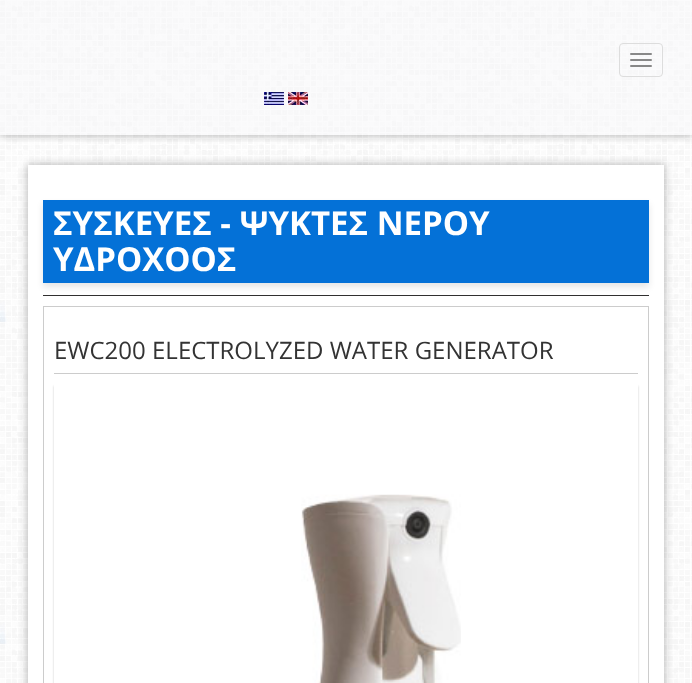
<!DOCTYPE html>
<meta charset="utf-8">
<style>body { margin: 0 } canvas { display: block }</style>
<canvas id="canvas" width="692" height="683"></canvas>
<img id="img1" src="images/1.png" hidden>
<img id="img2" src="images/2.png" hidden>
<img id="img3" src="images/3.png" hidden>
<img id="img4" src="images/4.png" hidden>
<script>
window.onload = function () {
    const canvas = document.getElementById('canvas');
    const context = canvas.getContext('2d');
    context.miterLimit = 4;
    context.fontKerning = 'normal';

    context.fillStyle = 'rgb(255, 255, 255)';
    context.fillRect(0, 0, 692, 683);
    context.drawImage(document.getElementById('img1'), 0, 0, 692, 683);
    context.save();
    context.beginPath();
    context.rect(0, 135, 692, 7);
    context.clip();
    context.fillStyle = 'rgba(0, 0, 0, 0.3)';
    context.filter = 'blur(5px)';
    context.beginPath();
    context.rect(0, 0, 692, 135);
    context.fill();
    context.filter = 'none';
    context.restore();
    context.fillStyle = 'rgba(247, 247, 249, 0.5)';
    context.fillRect(0, 0, 692, 135);
    context.beginPath();
    context.roundRect(619.5, 43.5, 43, 33, 3.5);
    context.strokeStyle = 'rgb(221, 221, 221)';
    context.stroke();
    context.fillStyle = 'rgb(136, 136, 136)';
    context.beginPath();
    context.roundRect(630, 53, 22, 2, 1);
    context.fill();
    context.beginPath();
    context.roundRect(630, 59, 22, 2, 1);
    context.fill();
    context.beginPath();
    context.roundRect(630, 65, 22, 2, 1);
    context.fill();
    context.drawImage(document.getElementById('img2'), 264, 92, 20, 13);
    context.drawImage(document.getElementById('img3'), 288, 92, 20, 13);
    context.fillStyle = 'rgba(0, 0, 0, 0.3)';
    context.filter = 'blur(5px)';
    context.beginPath();
    context.rect(28, 165, 636, 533);
    context.fill();
    context.filter = 'none';
    context.fillStyle = 'rgb(255, 255, 255)';
    context.fillRect(28, 165, 636, 518);
    context.fillStyle = 'rgba(0, 0, 0, 0.1)';
    context.filter = 'blur(3px)';
    context.beginPath();
    context.rect(43, 204, 606, 83);
    context.fill();
    context.filter = 'none';
    context.fillStyle = 'rgb(4, 113, 215)';
    context.fillRect(43, 200, 606, 83);
    context.fillStyle = 'rgb(49, 48, 48)';
    context.fillRect(43, 295, 606, 1);
    context.strokeStyle = 'rgb(204, 204, 204)';
    context.strokeRect(43.5, 306.5, 605, 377);
    context.fillStyle = 'rgb(204, 204, 204)';
    context.fillRect(54, 373, 584, 1);
    context.save();
    context.beginPath();
    context.moveTo(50, 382);
    context.lineTo(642, 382);
    context.lineTo(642, 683);
    context.lineTo(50, 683);
    context.closePath();
    context.moveTo(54, 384);
    context.lineTo(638, 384);
    context.lineTo(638, 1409);
    context.lineTo(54, 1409);
    context.closePath();
    context.clip('evenodd');
    context.fillStyle = 'rgba(0, 0, 0, 0.2)';
    context.filter = 'blur(1px)';
    context.beginPath();
    context.rect(54, 386, 584, 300);
    context.fill();
    context.filter = 'none';
    context.restore();
    context.drawImage(document.getElementById('img4'), 301, 494, 160, 189);
    context.font = 'bold 33px Open Sans';
    context.fillStyle = 'rgb(255, 255, 255)';
    context.fillText('ΣΥΣΚΕΥΕΣ - ΨΥΚΤΕΣ ΝΕΡΟΥ', 53, 235);
    context.fillText('ΥΔΡΟΧΟΟΣ', 53, 271);
    context.font = '24px Open Sans';
    context.fillStyle = 'rgb(51, 51, 51)';
    context.fillText('EWC200 ELECTROLYZED WATER GENERATOR', 54, 359);
};
</script>
